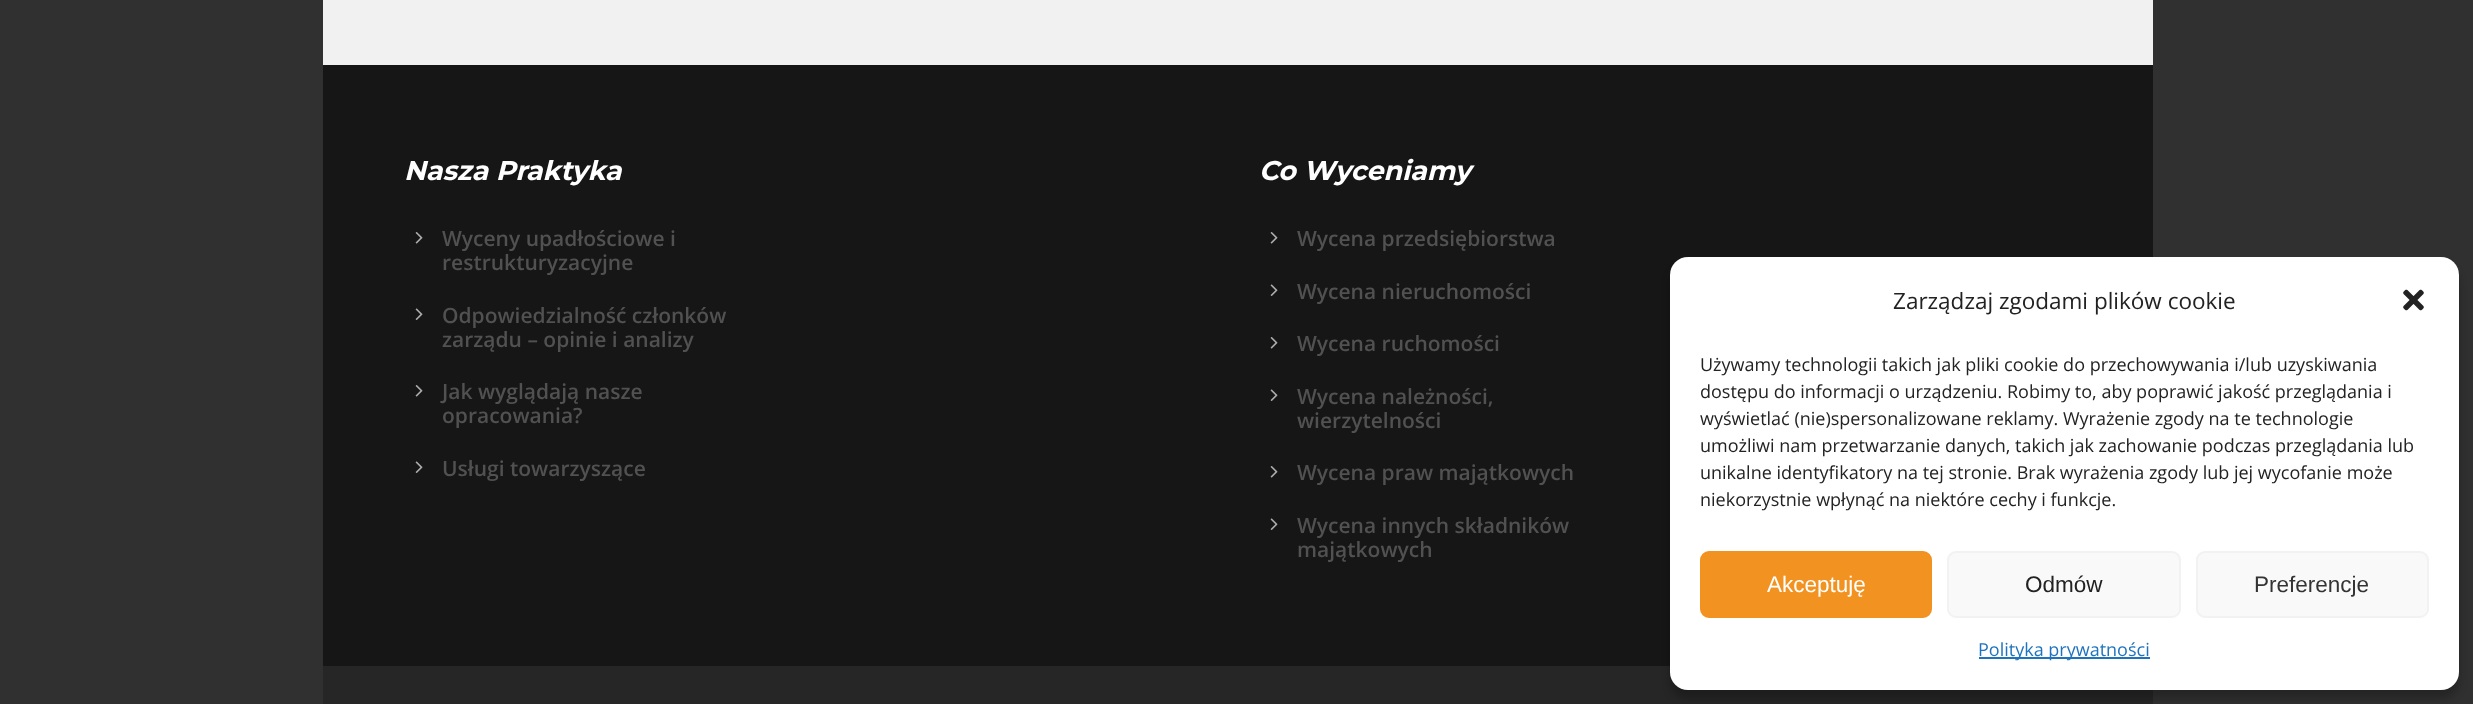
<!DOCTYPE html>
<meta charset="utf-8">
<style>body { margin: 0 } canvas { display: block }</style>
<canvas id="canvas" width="2473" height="704"></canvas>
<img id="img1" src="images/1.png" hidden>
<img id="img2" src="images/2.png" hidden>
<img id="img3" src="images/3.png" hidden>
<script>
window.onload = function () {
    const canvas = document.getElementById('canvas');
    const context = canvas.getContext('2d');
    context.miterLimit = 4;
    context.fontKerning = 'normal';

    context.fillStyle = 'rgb(48, 48, 48)';
    context.fillRect(0, 0, 2473, 704);
    context.fillStyle = 'rgb(241, 241, 241)';
    context.fillRect(323, 0, 1830, 65);
    context.fillStyle = 'rgb(22, 22, 22)';
    context.fillRect(323, 65, 1830, 601);
    context.drawImage(document.getElementById('img1'), 415, 232, 8, 12);
    context.drawImage(document.getElementById('img2'), 415, 308, 8, 12);
    context.drawImage(document.getElementById('img1'), 415, 385, 8, 12);
    context.drawImage(document.getElementById('img2'), 415, 461, 8, 12);
    context.drawImage(document.getElementById('img1'), 1270, 232, 8, 12);
    context.drawImage(document.getElementById('img2'), 1270, 284, 8, 12);
    context.drawImage(document.getElementById('img1'), 1270, 337, 8, 12);
    context.drawImage(document.getElementById('img2'), 1270, 389, 8, 12);
    context.drawImage(document.getElementById('img1'), 1270, 466, 8, 12);
    context.drawImage(document.getElementById('img2'), 1270, 518, 8, 12);
    context.fillStyle = 'rgb(38, 38, 38)';
    context.fillRect(323, 666, 1830, 38);
    context.fillStyle = 'rgba(0, 0, 0, 0.23)';
    context.filter = 'blur(4.5px)';
    context.beginPath();
    context.roundRect(1670, 266, 789, 433, 18);
    context.fill();
    context.filter = 'none';
    context.fillStyle = 'rgb(255, 255, 255)';
    context.beginPath();
    context.roundRect(1670, 257, 789, 433, 18);
    context.fill();
    context.drawImage(document.getElementById('img3'), 2403, 289, 21, 22);
    context.fillStyle = 'rgb(242, 146, 32)';
    context.beginPath();
    context.roundRect(1701, 552, 230, 65, 8);
    context.fill();
    context.strokeStyle = 'rgb(242, 146, 32)';
    context.lineWidth = 2;
    context.stroke();
    context.fillStyle = 'rgb(249, 249, 249)';
    context.beginPath();
    context.roundRect(1948, 552, 232, 65, 8);
    context.fill();
    context.strokeStyle = 'rgb(242, 242, 242)';
    context.stroke();
    context.beginPath();
    context.roundRect(2197, 552, 231, 65, 8);
    context.fill();
    context.stroke();
    context.fillStyle = 'rgb(30, 115, 190)';
    context.fillRect(1979, 657, 171, 2);
    context.font = 'italic bold 27px Montserrat';
    context.fillStyle = 'rgb(255, 255, 255)';
    context.fillText('Nasza Praktyka', 404, 180);
    context.font = '600 21px Open Sans';
    context.fillStyle = 'rgb(81, 81, 81)';
    context.fillText('Wyceny upadłościowe i', 442, 246);
    context.fillText('restrukturyzacyjne', 442, 270);
    context.fillText('Odpowiedzialność członków', 442, 323);
    context.fillText('zarządu – opinie i analizy', 442, 347);
    context.fillText('Jak wyglądają nasze', 442, 399);
    context.fillText('opracowania?', 442, 423);
    context.fillText('Usługi towarzyszące', 442, 476);
    context.font = 'italic bold 27px Montserrat';
    context.fillStyle = 'rgb(255, 255, 255)';
    context.fillText('Co Wyceniamy', 1259, 180);
    context.font = '600 21px Open Sans';
    context.fillStyle = 'rgb(81, 81, 81)';
    context.fillText('Wycena przedsiębiorstwa', 1297, 246);
    context.fillText('Wycena nieruchomości', 1297, 299);
    context.fillText('Wycena ruchomości', 1297, 351);
    context.fillText('Wycena należności,', 1297, 404);
    context.fillText('wierzytelności', 1297, 428);
    context.fillText('Wycena praw majątkowych', 1297, 480);
    context.fillText('Wycena innych składników', 1297, 533);
    context.fillText('majątkowych', 1297, 557);
    context.font = '22.5px Open Sans';
    context.fillStyle = 'rgb(34, 34, 34)';
    context.fillText('Zarządzaj zgodami plików cookie', 1893, 309);
    context.font = '18px Open Sans';
    context.fillText('Używamy technologii takich jak pliki cookie do przechowywania i/lub uzyskiwania', 1700, 371);
    context.fillText('dostępu do informacji o urządzeniu. Robimy to, aby poprawić jakość przeglądania i', 1700, 398);
    context.fillText('wyświetlać (nie)spersonalizowane reklamy. Wyrażenie zgody na te technologie', 1700, 425);
    context.fillText('umożliwi nam przetwarzanie danych, takich jak zachowanie podczas przeglądania lub', 1700, 452);
    context.fillText('unikalne identyfikatory na tej stronie. Brak wyrażenia zgody lub jej wycofanie może', 1700, 479);
    context.fillText('niekorzystnie wpłynąć na niektóre cechy i funkcje.', 1700, 506);
    context.font = '22.5px Liberation Sans';
    context.fillStyle = 'rgb(255, 255, 255)';
    context.fillText('Akceptuję', 1767, 592);
    context.fillStyle = 'rgb(34, 34, 34)';
    context.fillText('Odmów', 2025, 592);
    context.fillStyle = 'rgb(51, 51, 51)';
    context.fillText('Preferencje', 2254, 592);
    context.font = '18px Open Sans';
    context.fillStyle = 'rgb(30, 115, 190)';
    context.fillText('Polityka prywatności', 1978, 656);
};
</script>
